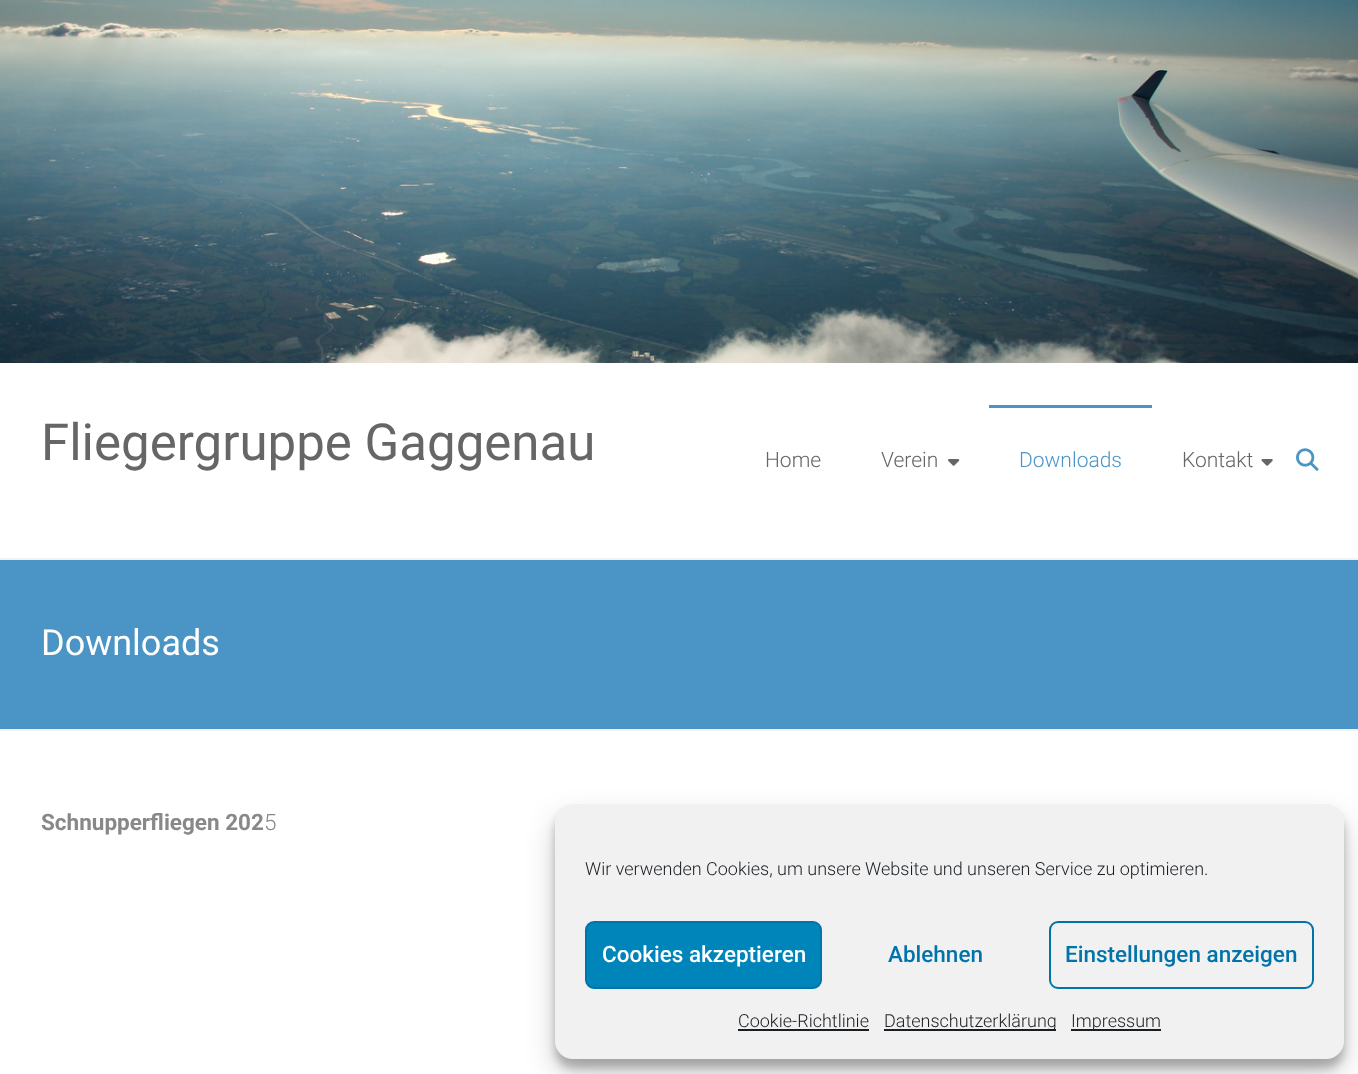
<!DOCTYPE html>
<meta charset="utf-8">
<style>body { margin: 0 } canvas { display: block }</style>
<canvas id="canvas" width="1358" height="1074"></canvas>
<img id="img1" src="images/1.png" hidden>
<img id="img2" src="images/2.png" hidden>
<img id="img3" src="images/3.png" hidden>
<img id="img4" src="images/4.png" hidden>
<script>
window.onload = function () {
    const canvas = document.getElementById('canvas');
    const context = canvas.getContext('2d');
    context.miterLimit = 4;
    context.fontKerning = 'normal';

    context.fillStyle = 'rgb(255, 255, 255)';
    context.fillRect(0, 0, 1358, 1074);
    context.fillStyle = 'rgb(242, 242, 242)';
    context.fillRect(0, 558, 1358, 2);
    context.drawImage(document.getElementById('img1'), 0, 0, 1358, 363);
    context.drawImage(document.getElementById('img2'), 948, 459, 12, 7);
    context.fillStyle = 'rgb(75, 149, 198)';
    context.fillRect(989, 405, 163, 3);
    context.drawImage(document.getElementById('img3'), 1261, 459, 12, 7);
    context.drawImage(document.getElementById('img4'), 1296, 448, 23, 23);
    context.fillRect(0, 560, 1358, 169);
    context.fillStyle = 'rgb(242, 242, 242)';
    context.fillRect(0, 729, 1358, 2);
    context.fillStyle = 'rgba(0, 0, 0, 0.23)';
    context.filter = 'blur(4.5px)';
    context.beginPath();
    context.roundRect(555, 813, 789, 255, 18);
    context.fill();
    context.filter = 'none';
    context.fillStyle = 'rgba(0, 0, 0, 0.19)';
    context.filter = 'blur(15px)';
    context.beginPath();
    context.roundRect(555, 819, 789, 255, 18);
    context.fill();
    context.filter = 'none';
    context.fillStyle = 'rgb(241, 241, 241)';
    context.beginPath();
    context.roundRect(555, 804, 789, 255, 18);
    context.fill();
    context.fillStyle = 'rgb(0, 133, 186)';
    context.beginPath();
    context.roundRect(586, 922, 235, 66, 8);
    context.fill();
    context.strokeStyle = 'rgb(0, 115, 170)';
    context.lineWidth = 2;
    context.stroke();
    context.beginPath();
    context.roundRect(1050, 922, 263, 66, 8);
    context.stroke();
    context.fillStyle = 'rgb(25, 30, 35)';
    context.fillRect(738, 1029, 131, 2);
    context.fillRect(884, 1029, 172, 2);
    context.fillRect(1071, 1029, 90, 2);
    context.font = '51px Roboto';
    context.fillStyle = 'rgb(102, 102, 102)';
    context.fillText('Fliegergruppe Gaggenau', 41, 460);
    context.font = '300 21px Roboto';
    context.fillText('Home', 765, 467);
    context.fillText('Verein', 881, 467);
    context.fillStyle = 'rgb(75, 149, 198)';
    context.fillText('Downloads', 1019, 467);
    context.fillStyle = 'rgb(102, 102, 102)';
    context.fillText('Kontakt', 1182, 467);
    context.font = '36px Roboto';
    context.fillStyle = 'rgb(255, 255, 255)';
    context.fillText('Downloads', 41, 655);
    context.font = 'bold 22.5px Roboto';
    context.fillStyle = 'rgb(136, 136, 136)';
    context.fillText('Schnupperfliegen 202', 41, 830);
    context.font = '300 22.5px Roboto';
    context.fillText('5', 264, 830);
    context.font = '300 18px Roboto';
    context.fillStyle = 'rgb(25, 30, 35)';
    context.fillText('Wir verwenden Cookies, um unsere Website und unseren Service zu optimieren.', 585, 875);
    context.font = '500 22.5px Roboto';
    context.fillStyle = 'rgb(255, 255, 255)';
    context.fillText('Cookies akzeptieren', 602, 962);
    context.fillStyle = 'rgb(0, 115, 170)';
    context.fillText('Ablehnen', 888, 962);
    context.fillText('Einstellungen anzeigen', 1065, 962);
    context.font = '300 18px Roboto';
    context.fillStyle = 'rgb(25, 30, 35)';
    context.fillText('Cookie-Richtlinie', 738, 1027);
    context.fillText('Datenschutzerklärung', 884, 1027);
    context.fillText('Impressum', 1071, 1027);
};
</script>
